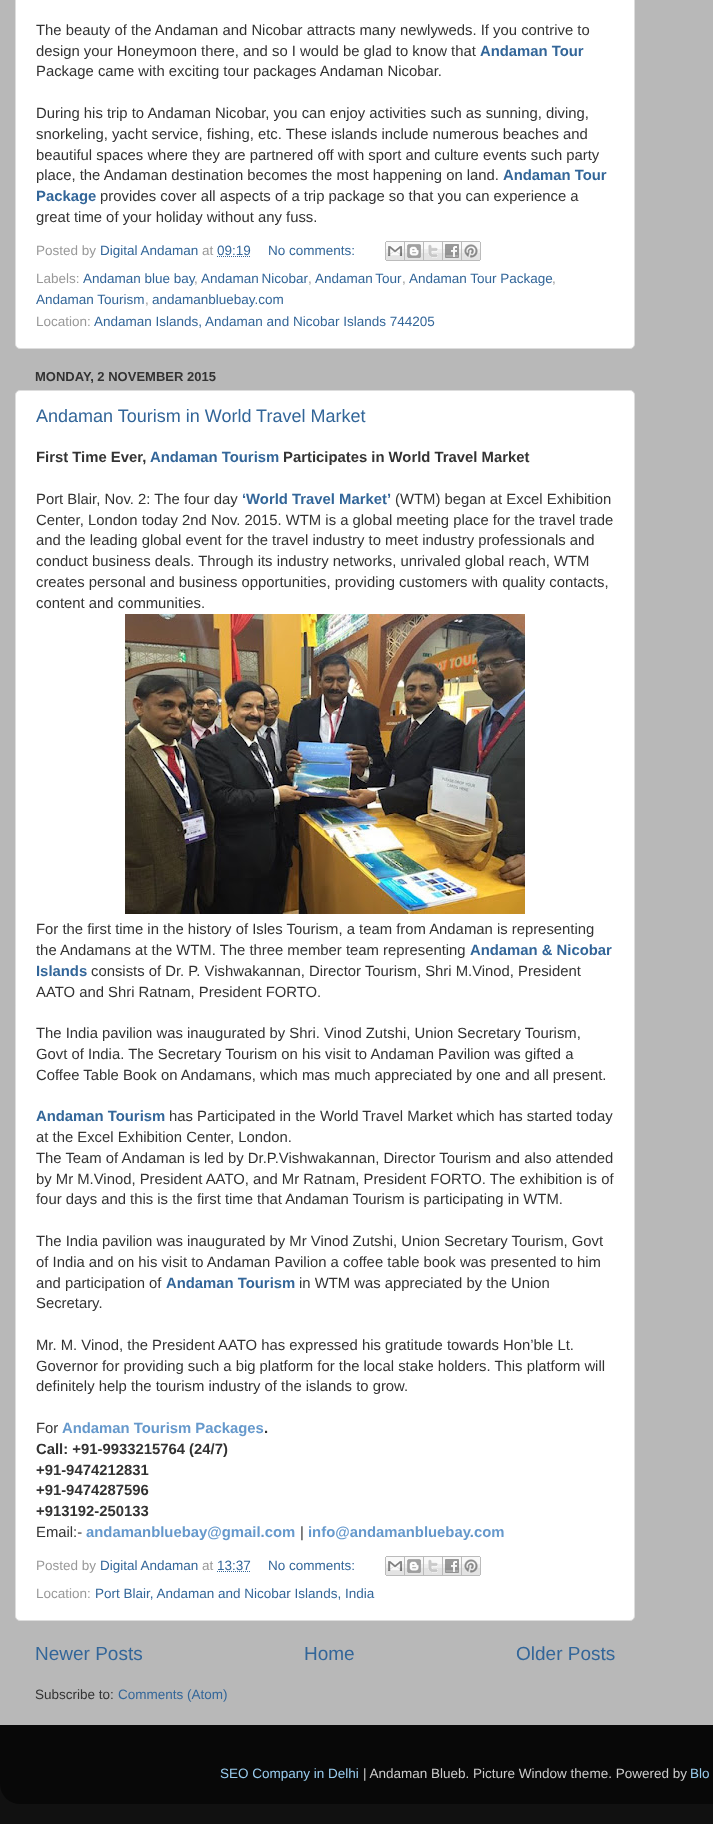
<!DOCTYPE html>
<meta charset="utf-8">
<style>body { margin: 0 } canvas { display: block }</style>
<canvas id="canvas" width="713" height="1824"></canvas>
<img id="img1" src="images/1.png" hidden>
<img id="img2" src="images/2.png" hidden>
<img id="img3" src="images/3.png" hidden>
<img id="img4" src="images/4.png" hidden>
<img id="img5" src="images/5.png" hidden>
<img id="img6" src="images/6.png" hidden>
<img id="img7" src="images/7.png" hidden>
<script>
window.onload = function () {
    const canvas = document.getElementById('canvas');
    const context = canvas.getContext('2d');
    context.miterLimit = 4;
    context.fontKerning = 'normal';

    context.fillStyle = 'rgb(17, 17, 17)';
    context.fillRect(0, 0, 713, 1824);
    context.fillStyle = 'rgb(184, 184, 184)';
    context.fillRect(0, 0, 713, 1725);
    context.fillStyle = 'rgb(255, 255, 255)';
    context.beginPath();
    context.roundRect(15.5, -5.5, 619, 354, 4.5);
    context.fill();
    context.strokeStyle = 'rgb(221, 221, 221)';
    context.stroke();
    context.beginPath();
    context.moveTo(217, 256.5);
    context.lineTo(250.5, 256.5);
    context.strokeStyle = 'rgb(51, 102, 153)';
    context.setLineDash([1, 1]);
    context.stroke();
    context.drawImage(document.getElementById('img1'), 385, 241, 20, 20);
    context.drawImage(document.getElementById('img2'), 405, 241, 19, 20);
    context.drawImage(document.getElementById('img3'), 424, 241, 19, 20);
    context.drawImage(document.getElementById('img4'), 443, 241, 19, 20);
    context.drawImage(document.getElementById('img5'), 462, 241, 19, 20);
    context.beginPath();
    context.roundRect(15.5, 390.5, 619, 1230, 4.5);
    context.fill();
    context.strokeStyle = 'rgb(221, 221, 221)';
    context.setLineDash([]);
    context.stroke();
    context.drawImage(document.getElementById('img6'), 125, 614, 400, 300);
    context.beginPath();
    context.moveTo(217, 1571.5);
    context.lineTo(250.5, 1571.5);
    context.strokeStyle = 'rgb(51, 102, 153)';
    context.setLineDash([1, 1]);
    context.stroke();
    context.drawImage(document.getElementById('img1'), 385, 1556, 20, 20);
    context.drawImage(document.getElementById('img2'), 405, 1556, 19, 20);
    context.drawImage(document.getElementById('img3'), 424, 1556, 19, 20);
    context.drawImage(document.getElementById('img4'), 443, 1556, 19, 20);
    context.drawImage(document.getElementById('img5'), 462, 1556, 19, 20);
    context.drawImage(document.getElementById('img7'), 0, 1725, 713, 79);
    context.font = '14.85px Liberation Sans';
    context.fillStyle = 'rgb(51, 51, 51)';
    context.fillText('The beauty of the Andaman and Nicobar attracts many newlyweds. If you contrive to', 36, 35);
    context.fillText('design your Honeymoon there, and so I would be glad to know that', 36, 56);
    context.font = 'bold 14.85px Liberation Sans';
    context.fillStyle = 'rgb(51, 102, 153)';
    context.fillText('Andaman Tour', 480, 56);
    context.font = '14.85px Liberation Sans';
    context.fillStyle = 'rgb(51, 51, 51)';
    context.fillText('Package came with exciting tour packages Andaman Nicobar.', 36, 76);
    context.fillText('During his trip to Andaman Nicobar, you can enjoy activities such as sunning, diving,', 36, 118);
    context.fillText('snorkeling, yacht service, fishing, etc. These islands include numerous beaches and', 36, 139);
    context.fillText('beautiful spaces where they are partnered off with sport and culture events such party', 36, 160);
    context.fillText('place, the Andaman destination becomes the most happening on land.', 36, 180);
    context.font = 'bold 14.85px Liberation Sans';
    context.fillStyle = 'rgb(51, 102, 153)';
    context.fillText('Andaman Tour', 503, 180);
    context.fillText('Package', 36, 201);
    context.font = '14.85px Liberation Sans';
    context.fillStyle = 'rgb(51, 51, 51)';
    context.fillText('provides cover all aspects of a trip package so that you can experience a', 100, 201);
    context.fillText('great time of your holiday without any fuss.', 36, 222);
    context.font = '13.5px Liberation Sans';
    context.fillStyle = 'rgb(153, 153, 153)';
    context.fillText('Posted by', 36, 255);
    context.fillStyle = 'rgb(51, 102, 153)';
    context.fillText('Digital Andaman', 100, 255);
    context.fillStyle = 'rgb(153, 153, 153)';
    context.fillText('at', 202, 255);
    context.fillStyle = 'rgb(51, 102, 153)';
    context.fillText('09:19', 217, 255);
    context.fillText('No comments:', 268, 255);
    context.fillStyle = 'rgb(153, 153, 153)';
    context.fillText('Labels:', 36, 283);
    context.fillStyle = 'rgb(51, 102, 153)';
    context.fillText('Andaman blue bay', 83, 283);
    context.fillStyle = 'rgb(153, 153, 153)';
    context.fillText(',', 194, 283);
    context.wordSpacing = '-1px';
    context.fillStyle = 'rgb(51, 102, 153)';
    context.fillText('Andaman Nicobar', 201, 283);
    context.wordSpacing = '0px';
    context.fillStyle = 'rgb(153, 153, 153)';
    context.fillText(',', 308, 283);
    context.wordSpacing = '-1px';
    context.fillStyle = 'rgb(51, 102, 153)';
    context.fillText('Andaman Tour', 315, 283);
    context.wordSpacing = '0px';
    context.fillStyle = 'rgb(153, 153, 153)';
    context.fillText(',', 402, 283);
    context.fillStyle = 'rgb(51, 102, 153)';
    context.fillText('Andaman Tour Package', 409, 283);
    context.fillStyle = 'rgb(153, 153, 153)';
    context.fillText(',', 552, 283);
    context.fillStyle = 'rgb(51, 102, 153)';
    context.fillText('Andaman Tourism', 36, 304);
    context.fillStyle = 'rgb(153, 153, 153)';
    context.fillText(',', 145, 304);
    context.fillStyle = 'rgb(51, 102, 153)';
    context.fillText('andamanbluebay.com', 152, 304);
    context.fillStyle = 'rgb(153, 153, 153)';
    context.fillText('Location:', 36, 326);
    context.fillStyle = 'rgb(51, 102, 153)';
    context.fillText('Andaman Islands, Andaman and Nicobar Islands 744205', 94, 326);
    context.font = 'bold 13px Liberation Sans';
    context.fillStyle = 'rgb(51, 51, 51)';
    context.fillText('MONDAY, 2 NOVEMBER 2015', 35, 381);
    context.font = '18px Liberation Sans';
    context.fillStyle = 'rgb(51, 102, 153)';
    context.fillText('Andaman Tourism in World Travel Market', 36, 422);
    context.font = 'bold 14.85px Liberation Sans';
    context.fillStyle = 'rgb(51, 51, 51)';
    context.fillText('First Time Ever,', 36, 462);
    context.fillStyle = 'rgb(51, 102, 153)';
    context.fillText('Andaman Tourism', 150, 462);
    context.fillStyle = 'rgb(51, 51, 51)';
    context.fillText('Participates in World Travel Market', 283, 462);
    context.font = '14.85px Liberation Sans';
    context.fillText('Port Blair, Nov. 2: The four day', 36, 504);
    context.font = 'bold 14.85px Liberation Sans';
    context.fillStyle = 'rgb(51, 102, 153)';
    context.fillText('‘World Travel Market’', 242, 504);
    context.font = '14.85px Liberation Sans';
    context.fillStyle = 'rgb(51, 51, 51)';
    context.fillText('(WTM) began at Excel Exhibition', 395, 504);
    context.fillText('Center, London today 2nd Nov. 2015. WTM is a global meeting place for the travel trade', 36, 525);
    context.fillText('and the leading global event for the travel industry to meet industry professionals and', 36, 545);
    context.fillText('conduct business deals. Through its industry networks, unrivaled global reach, WTM', 36, 566);
    context.fillText('creates personal and business opportunities, providing customers with quality contacts,', 36, 587);
    context.fillText('content and communities.', 36, 608);
    context.fillText('For the first time in the history of Isles Tourism, a team from Andaman is representing', 36, 934);
    context.fillText('the Andamans at the WTM. The three member team representing', 36, 955);
    context.font = 'bold 14.85px Liberation Sans';
    context.fillStyle = 'rgb(51, 102, 153)';
    context.fillText('Andaman & Nicobar', 470, 955);
    context.fillText('Islands', 36, 976);
    context.font = '14.85px Liberation Sans';
    context.fillStyle = 'rgb(51, 51, 51)';
    context.fillText('consists of Dr. P. Vishwakannan, Director Tourism, Shri M.Vinod, President', 91, 976);
    context.fillText('AATO and Shri Ratnam, President FORTO.', 36, 997);
    context.fillText('The India pavilion was inaugurated by Shri. Vinod Zutshi, Union Secretary Tourism,', 36, 1038);
    context.fillText('Govt of India. The Secretary Tourism on his visit to Andaman Pavilion was gifted a', 36, 1059);
    context.fillText('Coffee Table Book on Andamans, which mas much appreciated by one and all present.', 36, 1080);
    context.font = 'bold 14.85px Liberation Sans';
    context.fillStyle = 'rgb(51, 102, 153)';
    context.fillText('Andaman Tourism', 36, 1121);
    context.font = '14.85px Liberation Sans';
    context.fillStyle = 'rgb(51, 51, 51)';
    context.fillText('has Participated in the World Travel Market which has started today', 169, 1121);
    context.fillText('at the Excel Exhibition Center, London.', 36, 1142);
    context.fillText('The Team of Andaman is led by Dr.P.Vishwakannan, Director Tourism and also attended', 36, 1163);
    context.fillText('by Mr M.Vinod, President AATO, and Mr Ratnam, President FORTO. The exhibition is of', 36, 1184);
    context.fillText('four days and this is the first time that Andaman Tourism is participating in WTM.', 36, 1204);
    context.fillText('The India pavilion was inaugurated by Mr Vinod Zutshi, Union Secretary Tourism, Govt', 36, 1246);
    context.fillText('of India and on his visit to Andaman Pavilion a coffee table book was presented to him', 36, 1267);
    context.fillText('and participation of', 36, 1288);
    context.font = 'bold 14.85px Liberation Sans';
    context.fillStyle = 'rgb(51, 102, 153)';
    context.fillText('Andaman Tourism', 166, 1288);
    context.font = '14.85px Liberation Sans';
    context.fillStyle = 'rgb(51, 51, 51)';
    context.fillText('in WTM was appreciated by the Union', 299, 1288);
    context.fillText('Secretary.', 36, 1308);
    context.fillText('Mr. M. Vinod, the President AATO has expressed his gratitude towards Hon’ble Lt.', 36, 1350);
    context.fillText('Governor for providing such a big platform for the local stake holders. This platform will', 36, 1371);
    context.fillText('definitely help the tourism industry of the islands to grow.', 36, 1391);
    context.fillText('For', 36, 1433);
    context.font = 'bold 14.85px Liberation Sans';
    context.fillStyle = 'rgb(102, 153, 204)';
    context.fillText('Andaman Tourism Packages', 62, 1433);
    context.fillStyle = 'rgb(51, 51, 51)';
    context.fillText('.', 264, 1433);
    context.fillText('Call: +91-9933215764 (24/7)', 36, 1454);
    context.fillText('+91-9474212831', 36, 1475);
    context.fillText('+91-9474287596', 36, 1495);
    context.fillText('+913192-250133', 36, 1516);
    context.font = '14.85px Liberation Sans';
    context.fillText('Email:-', 36, 1537);
    context.font = 'bold 14.85px Liberation Sans';
    context.fillStyle = 'rgb(102, 153, 204)';
    context.fillText('andamanbluebay@gmail.com', 86, 1537);
    context.font = '14.85px Liberation Sans';
    context.fillStyle = 'rgb(51, 51, 51)';
    context.fillText('|', 300, 1537);
    context.font = 'bold 14.85px Liberation Sans';
    context.fillStyle = 'rgb(102, 153, 204)';
    context.fillText('info@andamanbluebay.com', 308, 1537);
    context.font = '13.5px Liberation Sans';
    context.fillStyle = 'rgb(153, 153, 153)';
    context.fillText('Posted by', 36, 1570);
    context.fillStyle = 'rgb(51, 102, 153)';
    context.fillText('Digital Andaman', 100, 1570);
    context.fillStyle = 'rgb(153, 153, 153)';
    context.fillText('at', 202, 1570);
    context.fillStyle = 'rgb(51, 102, 153)';
    context.fillText('13:37', 217, 1570);
    context.fillText('No comments:', 268, 1570);
    context.fillStyle = 'rgb(153, 153, 153)';
    context.fillText('Location:', 36, 1598);
    context.fillStyle = 'rgb(51, 102, 153)';
    context.fillText('Port Blair, Andaman and Nicobar Islands, India', 95, 1598);
    context.font = '19px Liberation Sans';
    context.fillText('Newer Posts', 35, 1660);
    context.fillText('Home', 304, 1660);
    context.fillText('Older Posts', 516, 1660);
    context.font = '13.5px Liberation Sans';
    context.fillStyle = 'rgb(51, 51, 51)';
    context.fillText('Subscribe to:', 35, 1699);
    context.fillStyle = 'rgb(51, 102, 153)';
    context.fillText('Comments (Atom)', 118, 1699);
    context.fillStyle = 'rgb(153, 204, 238)';
    context.fillText('SEO Company in Delhi', 220, 1778);
    context.fillStyle = 'rgb(204, 204, 204)';
    context.fillText('| Andaman Blueb. Picture Window theme. Powered by', 363, 1778);
    context.fillStyle = 'rgb(153, 204, 238)';
    context.fillText('Blo', 690, 1778);
};
</script>
